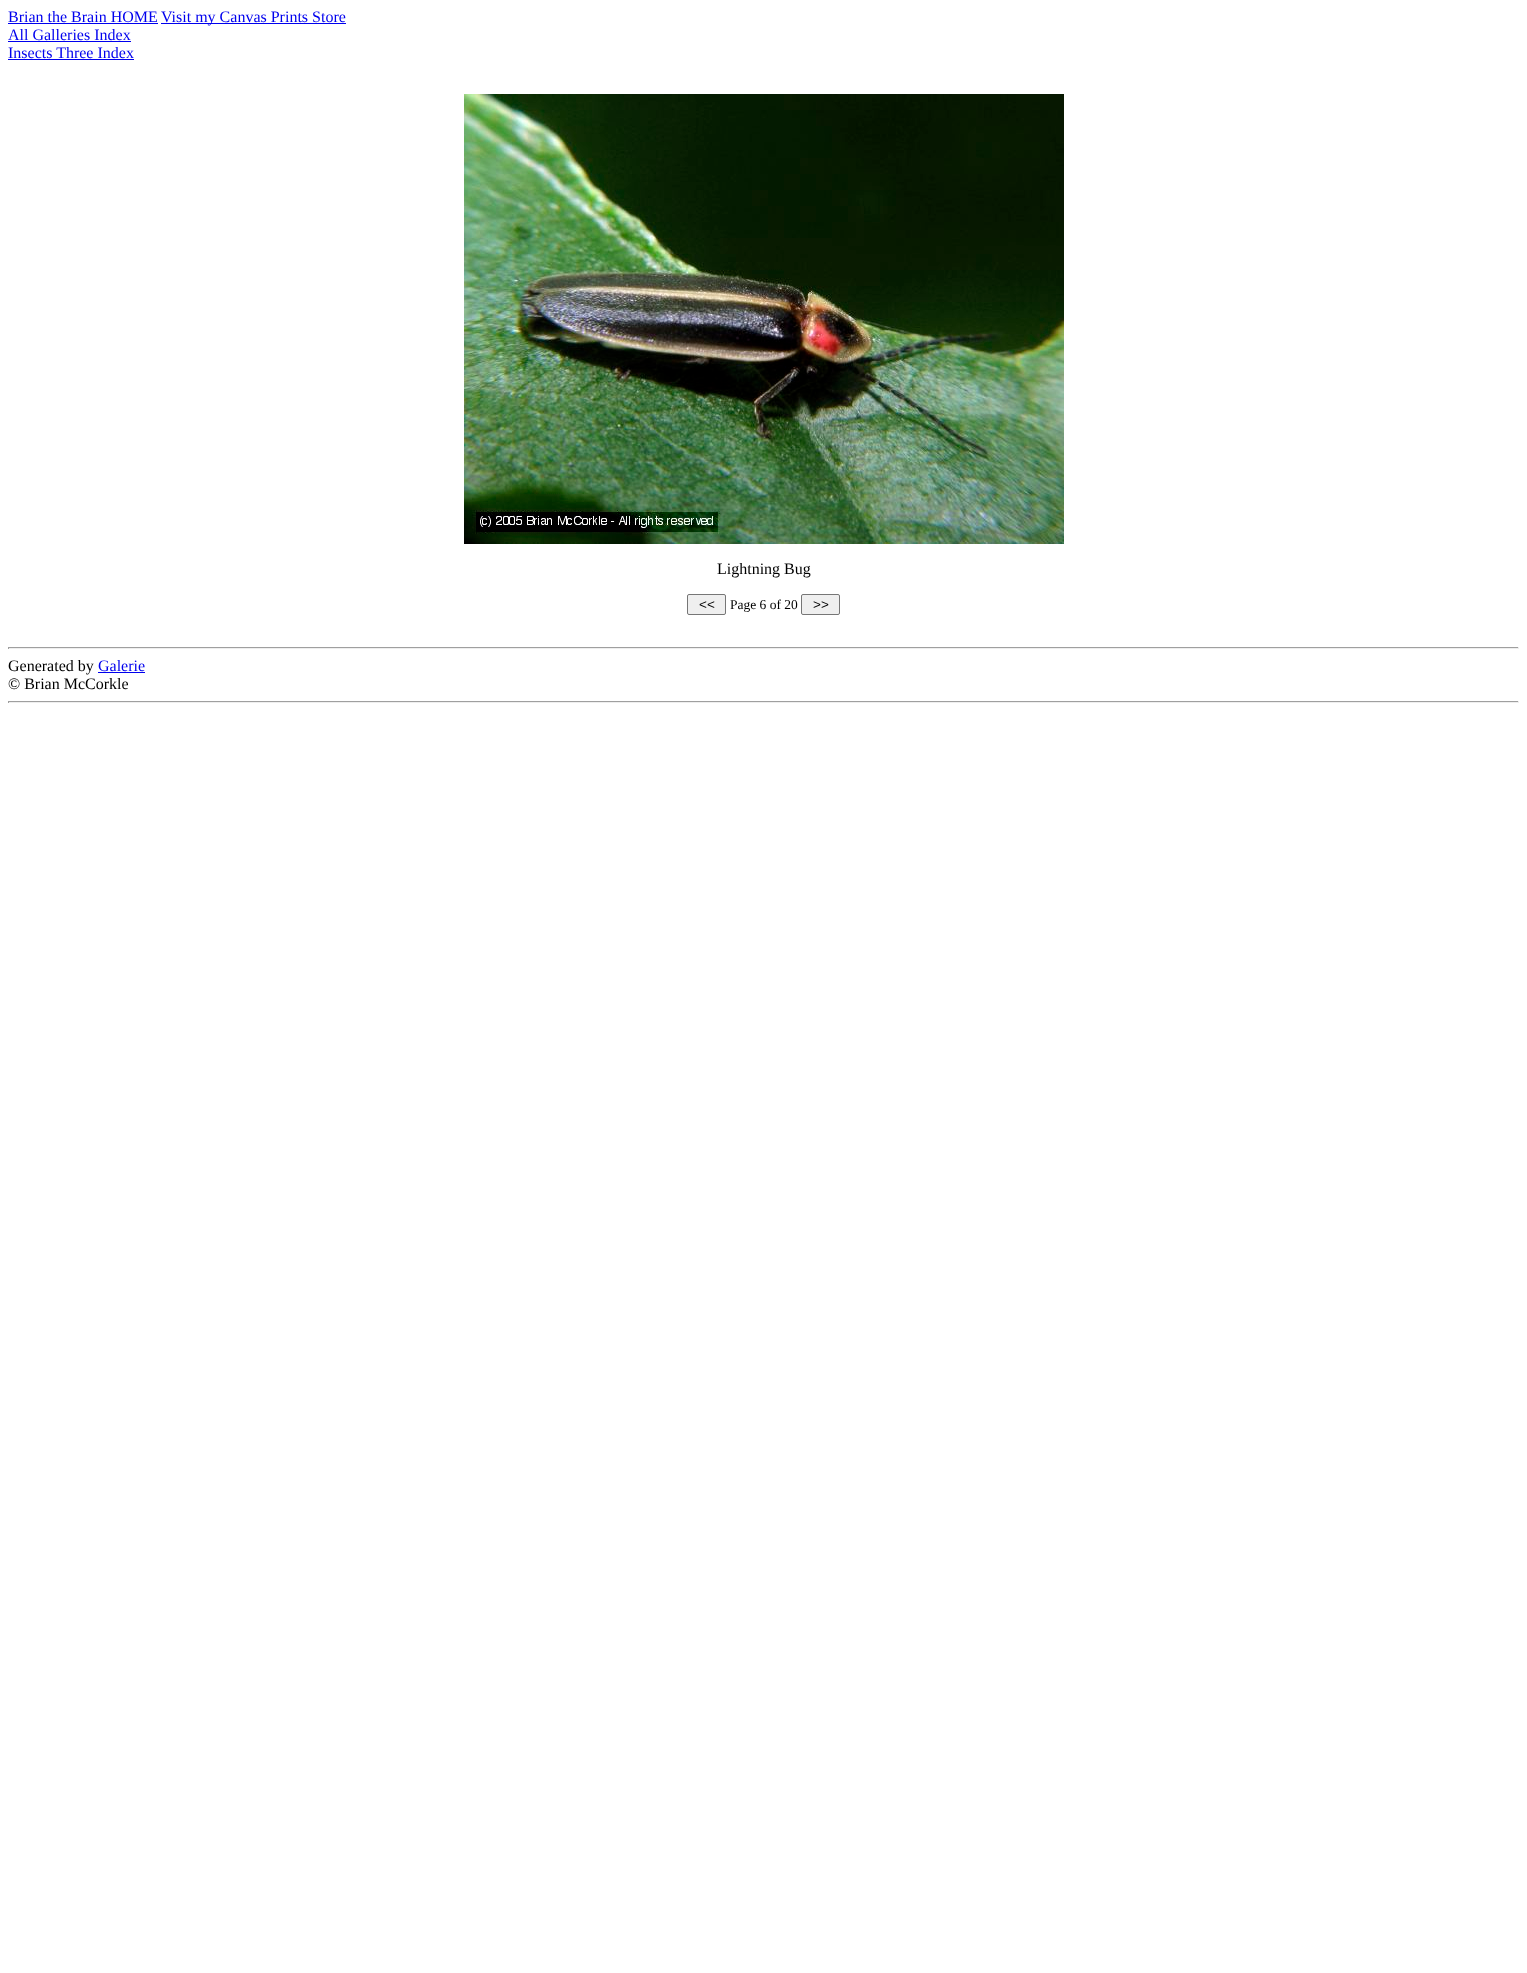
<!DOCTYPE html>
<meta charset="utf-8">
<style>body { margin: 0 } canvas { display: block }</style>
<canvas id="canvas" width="1527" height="1973"></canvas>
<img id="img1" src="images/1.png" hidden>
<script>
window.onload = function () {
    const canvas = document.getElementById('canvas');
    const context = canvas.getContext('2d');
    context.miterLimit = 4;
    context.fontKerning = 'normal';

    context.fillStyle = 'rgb(255, 255, 255)';
    context.fillRect(0, 0, 1527, 1973);
    context.fillStyle = 'rgb(0, 0, 238)';
    context.fillRect(8, 23, 150, 1);
    context.fillRect(161, 23, 185, 1);
    context.fillRect(8, 41, 123, 1);
    context.fillRect(8, 59, 126, 1);
    context.drawImage(document.getElementById('img1'), 464, 94, 600, 450);
    context.fillStyle = 'rgb(239, 239, 239)';
    context.beginPath();
    context.roundRect(687.5, 594.5, 38, 20, 1.5);
    context.fill();
    context.strokeStyle = 'rgb(118, 118, 118)';
    context.stroke();
    context.beginPath();
    context.roundRect(801.5, 594.5, 38, 20, 1.5);
    context.fill();
    context.stroke();
    context.fillStyle = 'rgb(159, 159, 159)';
    context.fillRect(8, 647, 1511, 1);
    context.fillStyle = 'rgb(238, 238, 238)';
    context.fillRect(1518, 647, 1, 2);
    context.fillRect(8, 648, 1511, 1);
    context.fillStyle = 'rgb(159, 159, 159)';
    context.fillRect(8, 647, 1, 2);
    context.fillStyle = 'rgb(0, 0, 238)';
    context.fillRect(98, 672, 47, 1);
    context.fillStyle = 'rgb(159, 159, 159)';
    context.fillRect(8, 701, 1511, 1);
    context.fillStyle = 'rgb(238, 238, 238)';
    context.fillRect(1518, 701, 1, 2);
    context.fillRect(8, 702, 1511, 1);
    context.fillStyle = 'rgb(159, 159, 159)';
    context.fillRect(8, 701, 1, 2);
    context.font = '16px Liberation Serif';
    context.fillStyle = 'rgb(0, 0, 238)';
    context.fillText('Brian the Brain HOME', 8, 22);
    context.fillText('Visit my Canvas Prints Store', 161, 22);
    context.fillText('All Galleries Index', 8, 40);
    context.fillText('Insects Three Index', 8, 58);
    context.fillStyle = 'rgb(0, 0, 0)';
    context.fillText('Lightning Bug', 717, 574);
    context.font = '13.5px Liberation Sans';
    context.fillText('<<', 699, 609);
    context.font = '13.5px Liberation Serif';
    context.fillText('Page 6 of 20', 730, 609);
    context.font = '13.5px Liberation Sans';
    context.fillText('>>', 813, 609);
    context.font = '16px Liberation Serif';
    context.fillText('Generated by', 8, 671);
    context.fillStyle = 'rgb(0, 0, 238)';
    context.fillText('Galerie', 98, 671);
    context.fillStyle = 'rgb(0, 0, 0)';
    context.fillText('© Brian McCorkle', 8, 689);
};
</script>
